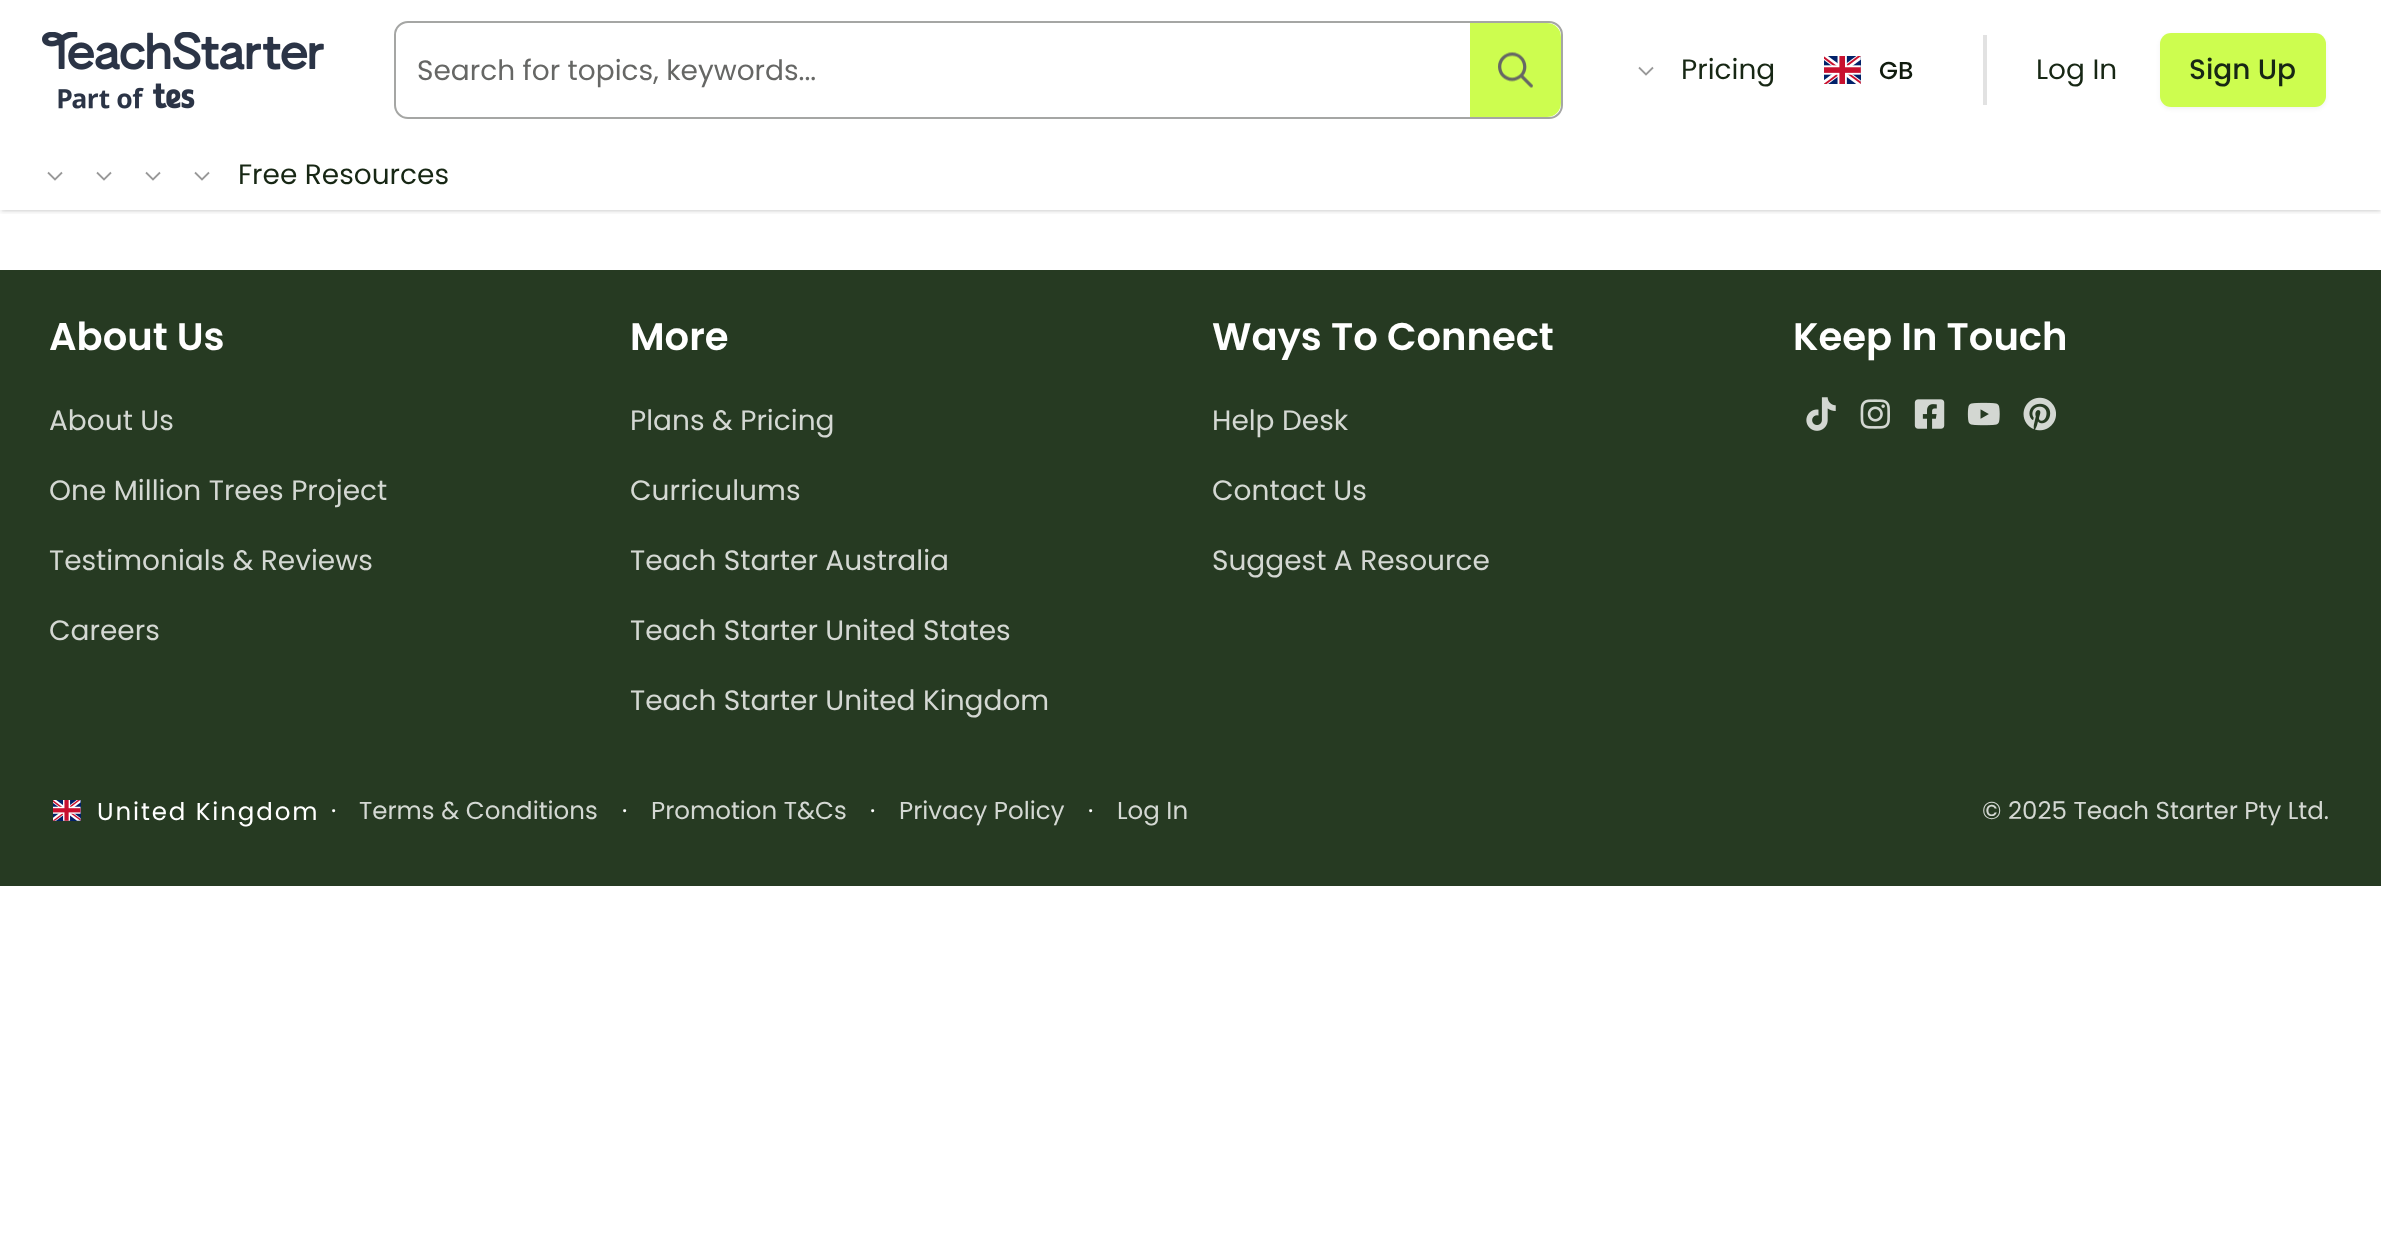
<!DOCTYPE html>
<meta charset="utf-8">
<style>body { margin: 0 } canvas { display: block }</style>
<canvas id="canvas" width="2381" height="1233"></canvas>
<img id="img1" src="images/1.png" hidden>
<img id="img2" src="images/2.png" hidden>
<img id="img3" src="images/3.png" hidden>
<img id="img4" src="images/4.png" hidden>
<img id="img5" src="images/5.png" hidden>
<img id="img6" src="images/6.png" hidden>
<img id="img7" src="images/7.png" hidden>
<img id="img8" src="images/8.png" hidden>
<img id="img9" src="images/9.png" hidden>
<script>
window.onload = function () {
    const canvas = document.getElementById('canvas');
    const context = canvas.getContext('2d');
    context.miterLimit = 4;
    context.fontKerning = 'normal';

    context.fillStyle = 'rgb(255, 255, 255)';
    context.fillRect(0, 0, 2381, 1233);
    context.save();
    context.beginPath();
    context.rect(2, 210, 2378, 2);
    context.clip();
    context.fillStyle = 'rgba(0, 0, 0, 0.1)';
    context.filter = 'blur(2px)';
    context.beginPath();
    context.rect(2, 4, 2378, 206);
    context.fill();
    context.filter = 'none';
    context.restore();
    context.save();
    context.beginPath();
    context.rect(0, 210, 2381, 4);
    context.clip();
    context.fillStyle = 'rgba(0, 0, 0, 0.1)';
    context.filter = 'blur(2.5px)';
    context.beginPath();
    context.rect(0, 2, 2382, 210);
    context.fill();
    context.filter = 'none';
    context.restore();
    context.drawImage(document.getElementById('img1'), 42, 32, 282, 77);
    context.beginPath();
    context.roundRect(395, 22, 1167, 96, 13);
    context.strokeStyle = 'rgb(165, 166, 164)';
    context.lineWidth = 2;
    context.stroke();
    context.fillStyle = 'rgb(205, 253, 79)';
    context.beginPath();
    context.roundRect(1470, 23, 91, 94, [0, 14, 14, 0]);
    context.fill();
    context.drawImage(document.getElementById('img2'), 1498, 52, 35, 36);
    context.beginPath();
    context.moveTo(1639, 67.5);
    context.lineTo(1646, 74.5);
    context.lineTo(1653, 67.5);
    context.strokeStyle = 'rgb(153, 153, 153)';
    context.lineWidth = 1.8;
    context.stroke();
    context.drawImage(document.getElementById('img3'), 1824, 56, 37, 28);
    context.fillStyle = 'rgb(226, 226, 226)';
    context.fillRect(1983, 35, 4, 70);
    context.fillStyle = 'rgba(0, 0, 0, 0.05)';
    context.filter = 'blur(2px)';
    context.beginPath();
    context.roundRect(2160, 35, 166, 74, 11);
    context.fill();
    context.filter = 'none';
    context.fillStyle = 'rgb(205, 253, 79)';
    context.beginPath();
    context.roundRect(2160, 33, 166, 74, 11);
    context.fill();
    context.beginPath();
    context.moveTo(48, 172.5);
    context.lineTo(55, 179.5);
    context.lineTo(62, 172.5);
    context.stroke();
    context.beginPath();
    context.moveTo(97, 172.5);
    context.lineTo(104, 179.5);
    context.lineTo(111, 172.5);
    context.stroke();
    context.beginPath();
    context.moveTo(146, 172.5);
    context.lineTo(153, 179.5);
    context.lineTo(160, 172.5);
    context.stroke();
    context.beginPath();
    context.moveTo(195, 172.5);
    context.lineTo(202, 179.5);
    context.lineTo(209, 172.5);
    context.stroke();
    context.fillStyle = 'rgb(38, 58, 34)';
    context.fillRect(0, 270, 2381, 616);
    context.drawImage(document.getElementById('img4'), 1806, 397, 30, 34);
    context.drawImage(document.getElementById('img5'), 1860, 399, 30, 30);
    context.drawImage(document.getElementById('img6'), 1914, 399, 31, 30);
    context.drawImage(document.getElementById('img7'), 1967, 402, 33, 24);
    context.drawImage(document.getElementById('img8'), 2023, 397, 33, 34);
    context.drawImage(document.getElementById('img9'), 53, 800, 28, 21);
    context.font = '28px Poppins';
    context.fillStyle = 'rgb(102, 103, 101)';
    context.fillText('Search for topics, keywords...', 417, 80);
    context.fillStyle = 'rgb(23, 39, 20)';
    context.fillText('Pricing', 1681, 79);
    context.font = '500 24.5px Poppins';
    context.fillStyle = 'rgb(16, 27, 14)';
    context.fillText('GB', 1879, 79);
    context.font = '28px Poppins';
    context.fillStyle = 'rgb(23, 39, 20)';
    context.fillText('Log In', 2036, 79);
    context.font = '500 28px Poppins';
    context.fillText('Sign Up', 2189, 79);
    context.font = '28px Poppins';
    context.fillText('Free Resources', 238, 184);
    context.font = '600 38.5px Poppins';
    context.fillStyle = 'rgb(255, 255, 255)';
    context.fillText('About Us', 49, 350);
    context.font = '28px Poppins';
    context.fillStyle = 'rgb(212, 216, 211)';
    context.fillText('About Us', 49, 430);
    context.fillText('One Million Trees Project', 49, 500);
    context.fillText('Testimonials & Reviews', 49, 570);
    context.fillText('Careers', 49, 640);
    context.font = '600 38.5px Poppins';
    context.fillStyle = 'rgb(255, 255, 255)';
    context.fillText('More', 630, 350);
    context.font = '28px Poppins';
    context.fillStyle = 'rgb(212, 216, 211)';
    context.fillText('Plans & Pricing', 630, 430);
    context.fillText('Curriculums', 630, 500);
    context.fillText('Teach Starter Australia', 630, 570);
    context.fillText('Teach Starter United States', 630, 640);
    context.fillText('Teach Starter United Kingdom', 630, 710);
    context.font = '600 38.5px Poppins';
    context.fillStyle = 'rgb(255, 255, 255)';
    context.fillText('Ways To Connect', 1212, 350);
    context.font = '28px Poppins';
    context.fillStyle = 'rgb(212, 216, 211)';
    context.fillText('Help Desk', 1212, 430);
    context.fillText('Contact Us', 1212, 500);
    context.fillText('Suggest A Resource', 1212, 570);
    context.font = '600 38.5px Poppins';
    context.fillStyle = 'rgb(255, 255, 255)';
    context.fillText('Keep In Touch', 1793, 350);
    context.letterSpacing = '1.9px';
    context.font = '24.5px Poppins';
    context.fillText('United Kingdom', 97, 820);
    context.letterSpacing = '0px';
    context.fillText('·', 331, 819);
    context.fillStyle = 'rgb(212, 216, 211)';
    context.fillText('Terms & Conditions', 359, 819);
    context.fillStyle = 'rgb(255, 255, 255)';
    context.fillText('·', 622, 819);
    context.fillStyle = 'rgb(212, 216, 211)';
    context.fillText('Promotion T&Cs', 651, 819);
    context.fillStyle = 'rgb(255, 255, 255)';
    context.fillText('·', 870, 819);
    context.fillStyle = 'rgb(212, 216, 211)';
    context.fillText('Privacy Policy', 899, 819);
    context.fillStyle = 'rgb(255, 255, 255)';
    context.fillText('·', 1088, 819);
    context.fillStyle = 'rgb(212, 216, 211)';
    context.fillText('Log In', 1117, 819);
    context.fillText('© 2025 Teach Starter Pty Ltd.', 1982, 819);
};
</script>
